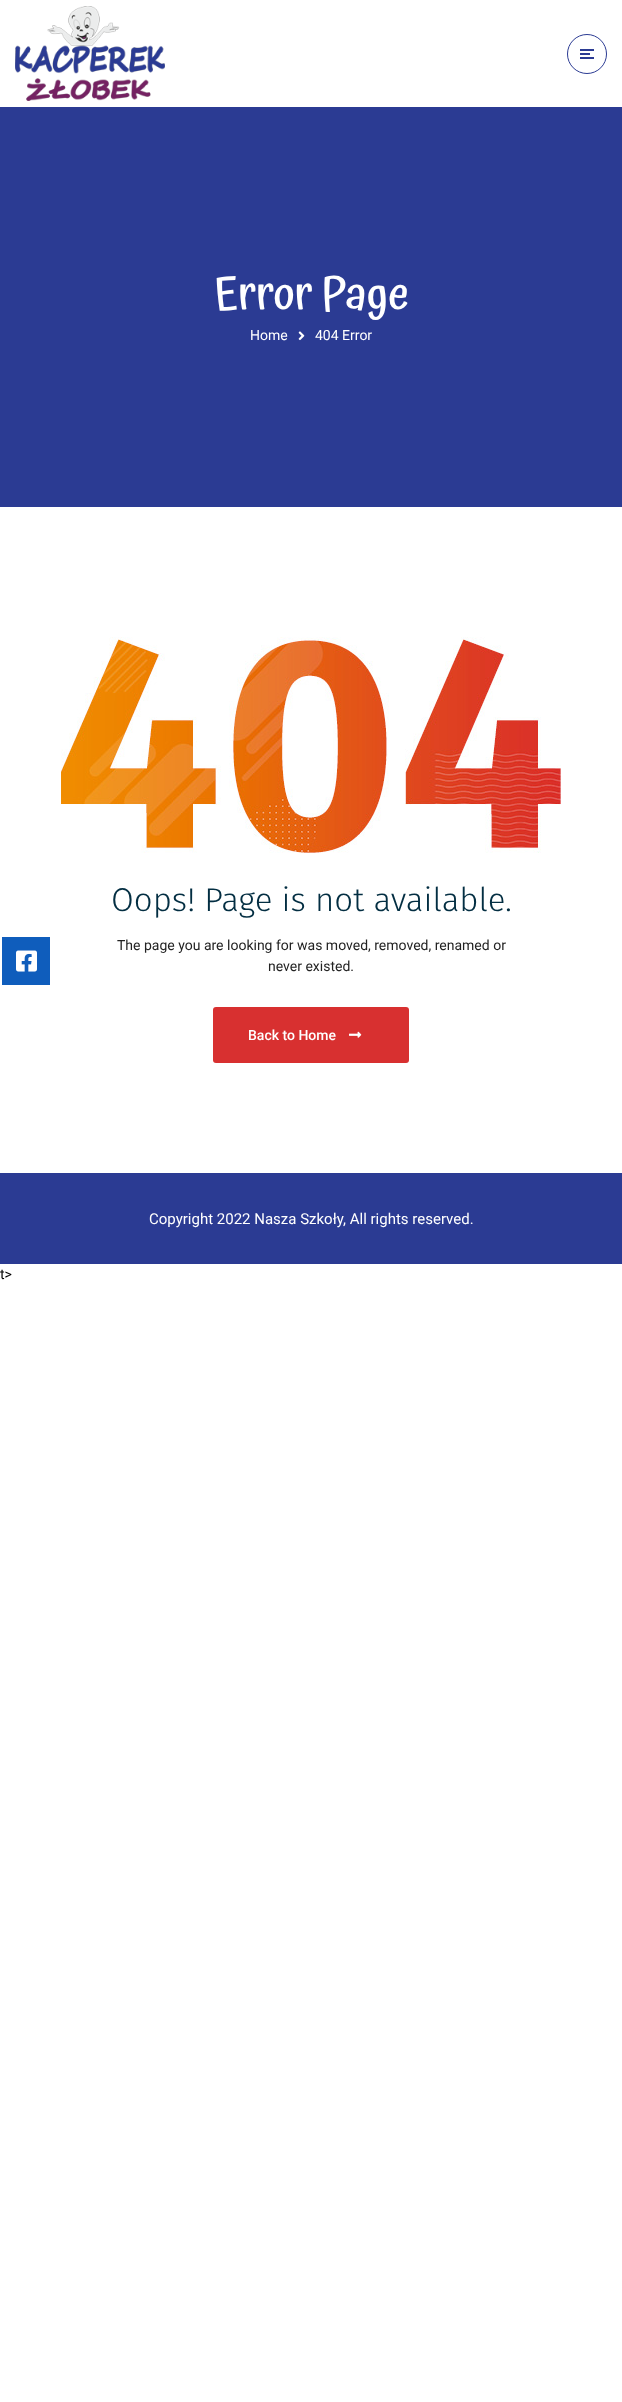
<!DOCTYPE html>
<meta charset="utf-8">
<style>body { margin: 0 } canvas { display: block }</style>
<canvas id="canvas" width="622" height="2402"></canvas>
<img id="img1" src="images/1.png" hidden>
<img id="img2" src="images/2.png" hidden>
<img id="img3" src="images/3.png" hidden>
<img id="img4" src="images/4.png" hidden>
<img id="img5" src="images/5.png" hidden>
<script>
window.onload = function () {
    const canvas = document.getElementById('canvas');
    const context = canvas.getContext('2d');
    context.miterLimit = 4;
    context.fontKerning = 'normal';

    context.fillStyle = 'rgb(255, 255, 255)';
    context.fillRect(0, 0, 622, 2402);
    context.fillStyle = 'rgb(15, 93, 188)';
    context.fillRect(2, 937, 48, 48);
    context.drawImage(document.getElementById('img1'), 16, 950, 21, 22);
    context.drawImage(document.getElementById('img2'), 15, 6, 150, 95);
    context.beginPath();
    context.arc(587, 54, 19.5, 0, 2 * Math.PI);
    context.strokeStyle = 'rgb(43, 59, 147)';
    context.stroke();
    context.fillStyle = 'rgb(43, 59, 147)';
    context.fillRect(580, 49, 14, 2);
    context.fillRect(580, 53, 10, 2);
    context.fillRect(580, 57, 14, 2);
    context.fillRect(0, 107, 622, 400);
    context.drawImage(document.getElementById('img3'), 298, 331, 7, 10);
    context.drawImage(document.getElementById('img4'), 61, 637, 500, 216);
    context.fillStyle = 'rgb(216, 48, 48)';
    context.beginPath();
    context.roundRect(213, 1007, 196, 56, 3);
    context.fill();
    context.drawImage(document.getElementById('img5'), 349, 1031, 13, 7);
    context.fillStyle = 'rgb(43, 59, 147)';
    context.fillRect(0, 1173, 622, 91);
    context.font = '500 45px Atma';
    context.fillStyle = 'rgb(255, 255, 255)';
    context.fillText('Error Page', 214, 309);
    context.font = '14px Roboto';
    context.fillText('Home', 250, 340);
    context.fillText('404 Error', 315, 340);
    context.font = '300 33px Fira Sans';
    context.fillStyle = 'rgb(3, 46, 66)';
    context.fillText('Oops! Page is not available.', 111, 911);
    context.font = '14px Roboto';
    context.fillStyle = 'rgb(35, 35, 35)';
    context.fillText('The page you are looking for was moved, removed, renamed or', 117, 950);
    context.fillText('never existed.', 268, 971);
    context.font = '500 14px Roboto';
    context.fillStyle = 'rgb(255, 255, 255)';
    context.fillText('Back to Home', 248, 1040);
    context.font = '15px Roboto';
    context.fillText('Copyright 2022 Nasza Szkoły, All rights reserved.', 149, 1224);
    context.font = '14px Roboto';
    context.fillStyle = 'rgb(0, 0, 0)';
    context.fillText('t>', 0, 1279);
};
</script>
